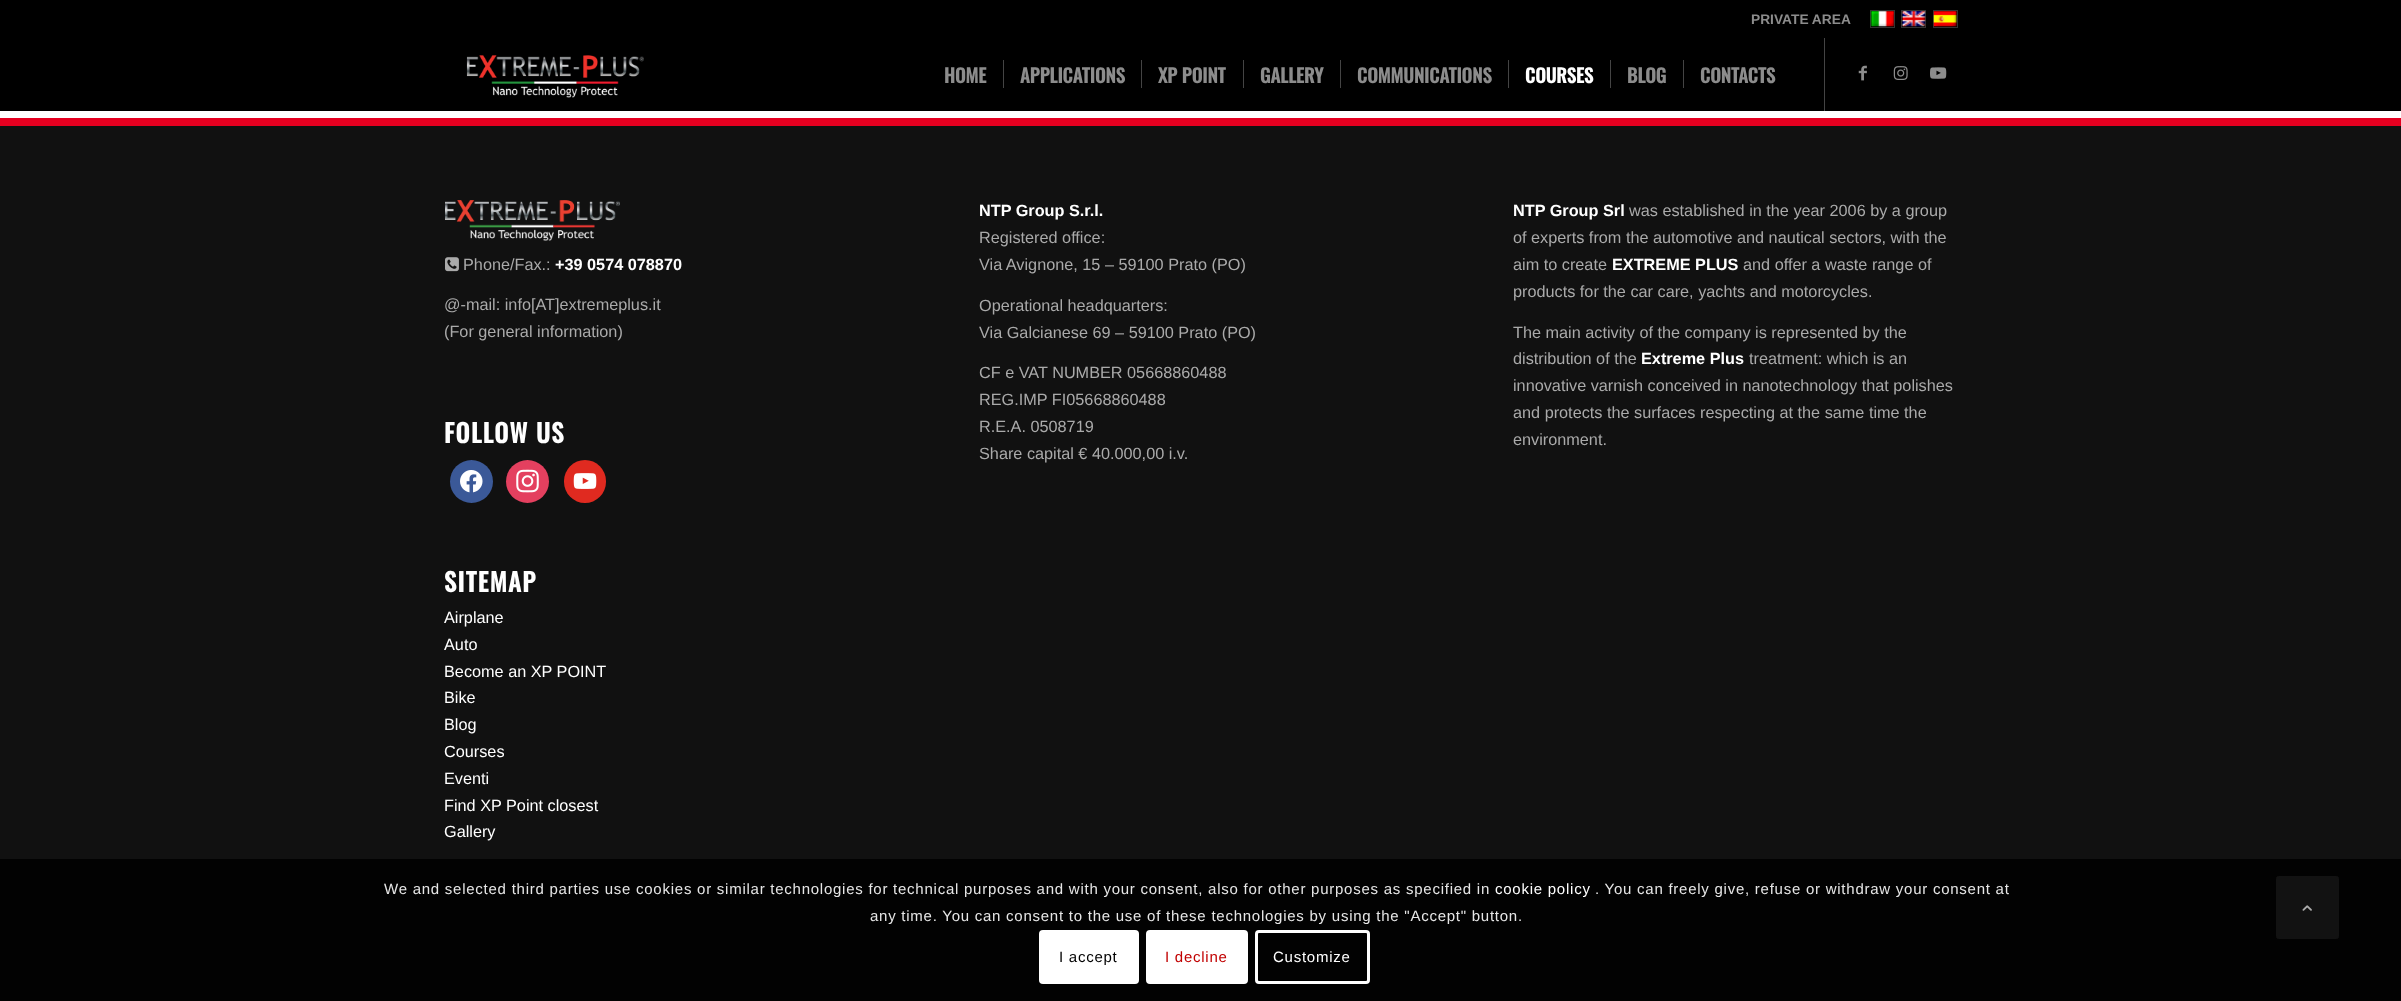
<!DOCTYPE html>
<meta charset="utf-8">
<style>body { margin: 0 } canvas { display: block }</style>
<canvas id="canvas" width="2401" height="1001"></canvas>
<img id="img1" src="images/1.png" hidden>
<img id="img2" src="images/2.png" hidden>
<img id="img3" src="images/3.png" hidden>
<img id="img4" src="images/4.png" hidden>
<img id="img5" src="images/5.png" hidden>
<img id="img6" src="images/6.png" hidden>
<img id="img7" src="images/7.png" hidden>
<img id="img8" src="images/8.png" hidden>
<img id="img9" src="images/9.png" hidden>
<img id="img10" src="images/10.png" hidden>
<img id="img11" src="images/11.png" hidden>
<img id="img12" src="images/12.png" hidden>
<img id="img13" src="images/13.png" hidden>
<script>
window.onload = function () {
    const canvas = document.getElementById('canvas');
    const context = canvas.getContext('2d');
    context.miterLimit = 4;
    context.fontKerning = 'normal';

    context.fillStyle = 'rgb(255, 255, 255)';
    context.fillRect(0, 0, 2401, 1001);
    context.fillStyle = 'rgb(0, 0, 0)';
    context.fillRect(0, 0, 2401, 111);
    context.strokeStyle = 'rgb(51, 51, 51)';
    context.strokeRect(1870.5, 10.5, 24, 17);
    context.drawImage(document.getElementById('img1'), 1870, 11, 24, 16);
    context.strokeRect(1901.5, 10.5, 24, 17);
    context.drawImage(document.getElementById('img2'), 1901, 11, 25, 16);
    context.strokeRect(1933.5, 10.5, 24, 17);
    context.drawImage(document.getElementById('img3'), 1933, 11, 24, 16);
    context.drawImage(document.getElementById('img4'), 466, 55, 178, 43);
    context.fillStyle = 'rgb(68, 68, 68)';
    context.fillRect(1824, 38, 1, 73);
    context.fillRect(1003, 60, 1, 28);
    context.fillRect(1141, 60, 1, 28);
    context.fillRect(1243, 60, 1, 28);
    context.fillRect(1340, 60, 1, 28);
    context.fillRect(1508, 60, 1, 28);
    context.fillRect(1610, 60, 1, 28);
    context.fillRect(1683, 60, 1, 28);
    context.drawImage(document.getElementById('img5'), 1858, 65, 9, 16);
    context.drawImage(document.getElementById('img6'), 1893, 66, 15, 14);
    context.drawImage(document.getElementById('img7'), 1930, 67, 17, 12);
    context.fillStyle = 'rgb(230, 0, 32)';
    context.fillRect(0, 118, 2401, 8);
    context.fillStyle = 'rgb(17, 17, 17)';
    context.fillRect(0, 126, 2401, 875);
    context.drawImage(document.getElementById('img8'), 445, 200, 175, 41);
    context.drawImage(document.getElementById('img9'), 445, 257, 14, 15);
    context.fillStyle = 'rgb(59, 89, 152)';
    context.beginPath();
    context.arc(471.5, 481.5, 21.5, 0, 2 * Math.PI);
    context.fill();
    context.drawImage(document.getElementById('img10'), 460, 470, 23, 23);
    context.fillStyle = 'rgb(228, 64, 95)';
    context.beginPath();
    context.arc(527.5, 481.5, 21.5, 0, 2 * Math.PI);
    context.fill();
    context.drawImage(document.getElementById('img11'), 516, 469, 23, 24);
    context.fillStyle = 'rgb(224, 42, 32)';
    context.beginPath();
    context.roundRect(564, 460, 42, 43, 21);
    context.fill();
    context.drawImage(document.getElementById('img12'), 573, 473, 24, 16);
    context.fillStyle = 'rgba(0, 0, 0, 0.85)';
    context.fillRect(0, 859, 2401, 142);
    context.fillStyle = 'rgb(255, 255, 255)';
    context.beginPath();
    context.roundRect(1039, 930, 100, 54, 4);
    context.fill();
    context.beginPath();
    context.roundRect(1147.5, 931.5, 99, 51, 2.5);
    context.fill();
    context.strokeStyle = 'rgb(255, 255, 255)';
    context.lineWidth = 3;
    context.stroke();
    context.beginPath();
    context.roundRect(1256.5, 931.5, 112, 51, 2.5);
    context.stroke();
    context.fillStyle = 'rgb(18, 18, 18)';
    context.beginPath();
    context.roundRect(2276.5, 876.5, 62, 62, 2);
    context.fill();
    context.strokeStyle = 'rgb(18, 18, 18)';
    context.lineWidth = 1;
    context.stroke();
    context.drawImage(document.getElementById('img13'), 2302, 905, 10, 6);
    context.font = 'bold 13.75px Liberation Sans';
    context.fillStyle = 'rgb(140, 140, 140)';
    context.fillText('PRIVATE AREA', 1751, 24);
    context.font = 'bold 18.75px Oswald';
    context.fillText('HOME', 944, 83);
    context.fillText('APPLICATIONS', 1020, 83);
    context.fillText('XP POINT', 1158, 83);
    context.fillText('GALLERY', 1260, 83);
    context.fillText('COMMUNICATIONS', 1357, 83);
    context.fillStyle = 'rgb(255, 255, 255)';
    context.fillText('COURSES', 1525, 83);
    context.fillStyle = 'rgb(140, 140, 140)';
    context.fillText('BLOG', 1627, 83);
    context.fillText('CONTACTS', 1700, 83);
    context.font = '16.25px Liberation Sans';
    context.fillStyle = 'rgb(170, 170, 170)';
    context.fillText('Phone/Fax.:', 463, 270);
    context.font = 'bold 16.25px Liberation Sans';
    context.fillStyle = 'rgb(255, 255, 255)';
    context.fillText('+39 0574 078870', 555, 270);
    context.font = '16.25px Liberation Sans';
    context.fillStyle = 'rgb(170, 170, 170)';
    context.fillText('@-mail: info[AT]extremeplus.it', 444, 310);
    context.fillText('(For general information)', 444, 337);
    context.letterSpacing = '1.25px';
    context.font = 'bold 25px Oswald';
    context.fillStyle = 'rgb(255, 255, 255)';
    context.fillText('FOLLOW US', 444, 443);
    context.fillText('SITEMAP', 444, 592);
    context.letterSpacing = '0px';
    context.font = '16.25px Liberation Sans';
    context.fillText('Airplane', 444, 623);
    context.fillText('Auto', 444, 650);
    context.fillText('Become an XP POINT', 444, 677);
    context.fillText('Bike', 444, 703);
    context.fillText('Blog', 444, 730);
    context.fillText('Courses', 444, 757);
    context.fillText('Eventi', 444, 784);
    context.fillText('Find XP Point closest', 444, 811);
    context.fillText('Gallery', 444, 837);
    context.font = 'bold 16.25px Liberation Sans';
    context.fillText('NTP Group S.r.l.', 979, 216);
    context.font = '16.25px Liberation Sans';
    context.fillStyle = 'rgb(170, 170, 170)';
    context.fillText('Registered office:', 979, 243);
    context.fillText('Via Avignone, 15 – 59100 Prato (PO)', 979, 270);
    context.fillText('Operational headquarters:', 979, 311);
    context.fillText('Via Galcianese 69 – 59100 Prato (PO)', 979, 338);
    context.fillText('CF e VAT NUMBER 05668860488', 979, 378);
    context.fillText('REG.IMP FI05668860488', 979, 405);
    context.fillText('R.E.A. 0508719', 979, 432);
    context.fillText('Share capital € 40.000,00 i.v.', 979, 459);
    context.font = 'bold 16.25px Liberation Sans';
    context.fillStyle = 'rgb(255, 255, 255)';
    context.fillText('NTP Group Srl', 1513, 216);
    context.font = '16.25px Liberation Sans';
    context.fillStyle = 'rgb(170, 170, 170)';
    context.fillText('was established in the year 2006 by a group', 1629, 216);
    context.fillText('of experts from the automotive and nautical sectors, with the', 1513, 243);
    context.fillText('aim to create', 1513, 270);
    context.font = 'bold 16.25px Liberation Sans';
    context.fillStyle = 'rgb(255, 255, 255)';
    context.fillText('EXTREME PLUS', 1612, 270);
    context.font = '16.25px Liberation Sans';
    context.fillStyle = 'rgb(170, 170, 170)';
    context.fillText('and offer a waste range of', 1743, 270);
    context.fillText('products for the car care, yachts and motorcycles.', 1513, 297);
    context.fillText('The main activity of the company is represented by the', 1513, 338);
    context.fillText('distribution of the', 1513, 364);
    context.font = 'bold 16.25px Liberation Sans';
    context.fillStyle = 'rgb(255, 255, 255)';
    context.fillText('Extreme Plus', 1641, 364);
    context.font = '16.25px Liberation Sans';
    context.fillStyle = 'rgb(170, 170, 170)';
    context.fillText('treatment: which is an', 1749, 364);
    context.fillText('innovative varnish conceived in nanotechnology that polishes', 1513, 391);
    context.fillText('and protects the surfaces respecting at the same time the', 1513, 418);
    context.fillText('environment.', 1513, 445);
    context.letterSpacing = '0.75px';
    context.font = '15px Liberation Sans';
    context.fillStyle = 'rgb(230, 230, 230)';
    context.fillText('We and selected third parties use cookies or similar technologies for technical purposes and with your consent, also for other purposes as specified in', 384, 894);
    context.fillStyle = 'rgb(255, 255, 255)';
    context.fillText('cookie policy', 1495, 894);
    context.fillStyle = 'rgb(230, 230, 230)';
    context.fillText('. You can freely give, refuse or withdraw your consent at', 1595, 894);
    context.fillText('any time. You can consent to the use of these technologies by using the "Accept" button.', 870, 921);
    context.fillStyle = 'rgb(0, 0, 0)';
    context.fillText('I accept', 1059, 962);
    context.fillStyle = 'rgb(193, 0, 0)';
    context.fillText('I decline', 1165, 962);
    context.fillStyle = 'rgb(255, 255, 255)';
    context.fillText('Customize', 1273, 962);
};
</script>
